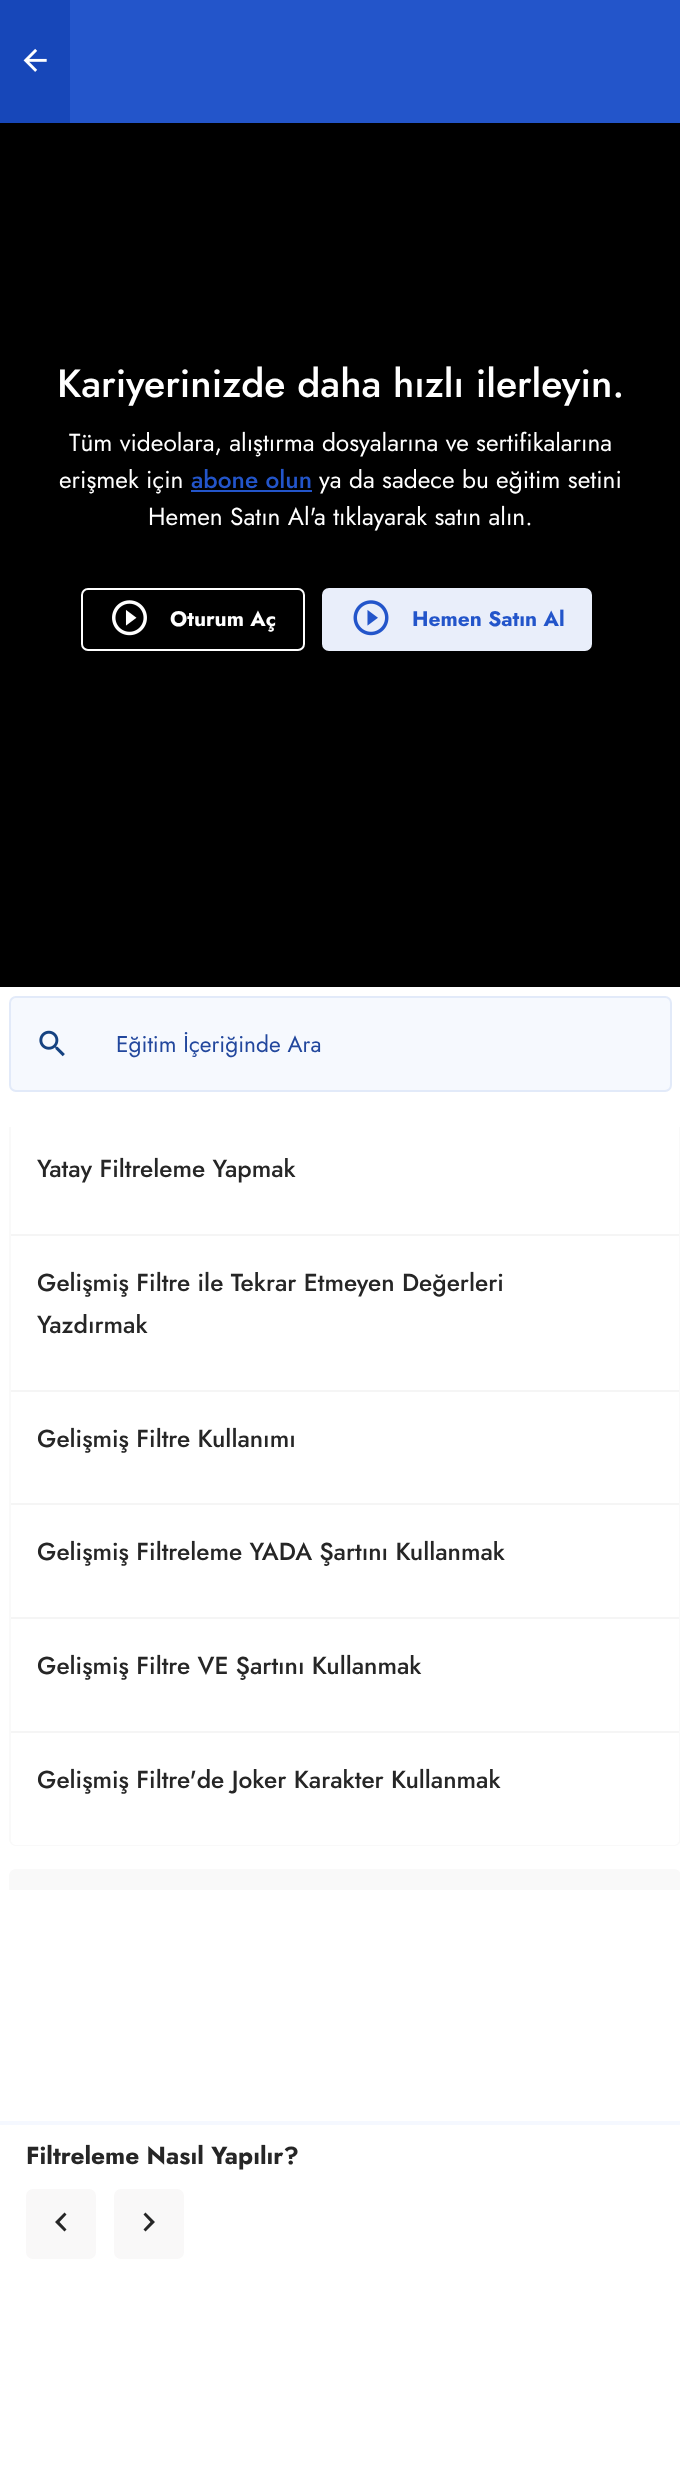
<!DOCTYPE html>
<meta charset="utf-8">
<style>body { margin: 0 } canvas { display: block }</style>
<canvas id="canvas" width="680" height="2465"></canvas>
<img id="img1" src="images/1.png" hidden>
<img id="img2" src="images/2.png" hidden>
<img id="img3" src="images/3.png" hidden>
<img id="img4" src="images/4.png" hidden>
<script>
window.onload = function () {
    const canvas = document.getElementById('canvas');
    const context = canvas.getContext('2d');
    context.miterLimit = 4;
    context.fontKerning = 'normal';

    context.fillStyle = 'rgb(0, 0, 0)';
    context.fillRect(0, 0, 680, 2465);
    context.fillStyle = 'rgb(35, 85, 202)';
    context.fillRect(70, 0, 610, 123);
    context.fillStyle = 'rgb(23, 71, 185)';
    context.fillRect(0, 0, 70, 123);
    context.drawImage(document.getElementById('img1'), 23, 48, 24, 24);
    context.fillStyle = 'rgb(35, 85, 202)';
    context.fillRect(191, 490, 121, 2);
    context.beginPath();
    context.roundRect(82, 589, 222, 61, 6);
    context.strokeStyle = 'rgb(255, 255, 255)';
    context.lineWidth = 2;
    context.stroke();
    context.drawImage(document.getElementById('img2'), 112, 600, 35, 36);
    context.fillStyle = 'rgb(233, 238, 250)';
    context.beginPath();
    context.roundRect(323, 589, 268, 61, 6);
    context.fill();
    context.strokeStyle = 'rgb(233, 238, 250)';
    context.stroke();
    context.drawImage(document.getElementById('img3'), 353, 600, 36, 36);
    context.fillStyle = 'rgb(255, 255, 255)';
    context.fillRect(0, 987, 680, 1134);
    context.fillStyle = 'rgb(246, 249, 254)';
    context.beginPath();
    context.roundRect(9, 996, 663, 96, 7);
    context.fill();
    context.beginPath();
    context.roundRect(10, 997, 661, 94, 6);
    context.strokeStyle = 'rgba(35, 85, 202, 0.09)';
    context.stroke();
    context.drawImage(document.getElementById('img4'), 39, 1030, 26, 27);
    context.fillStyle = 'rgb(249, 249, 249)';
    context.beginPath();
    context.moveTo(9, 1127);
    context.lineTo(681, 1127);
    context.lineTo(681, 1839);
    context.bezierCurveTo(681, 1843, 678, 1846, 674, 1846);
    context.lineTo(16, 1846);
    context.bezierCurveTo(12, 1846, 9, 1843, 9, 1839);
    context.closePath();
    context.fill();
    context.fillStyle = 'rgb(255, 255, 255)';
    context.fillRect(11, 1127, 668, 107);
    context.fillRect(11, 1236, 668, 154);
    context.fillStyle = 'rgb(245, 245, 245)';
    context.fillRect(11, 1234, 668, 2);
    context.fillStyle = 'rgb(255, 255, 255)';
    context.fillRect(11, 1392, 668, 111);
    context.fillStyle = 'rgb(245, 245, 245)';
    context.fillRect(11, 1390, 668, 2);
    context.fillStyle = 'rgb(255, 255, 255)';
    context.fillRect(11, 1505, 668, 112);
    context.fillStyle = 'rgb(245, 245, 245)';
    context.fillRect(11, 1503, 668, 2);
    context.fillStyle = 'rgb(255, 255, 255)';
    context.fillRect(11, 1619, 668, 112);
    context.fillStyle = 'rgb(245, 245, 245)';
    context.fillRect(11, 1617, 668, 2);
    context.fillStyle = 'rgb(255, 255, 255)';
    context.beginPath();
    context.roundRect(11, 1731, 668, 114, [0, 0, 5, 5]);
    context.fill();
    context.fillStyle = 'rgb(245, 245, 245)';
    context.fillRect(11, 1731, 668, 2);
    context.fillStyle = 'rgb(249, 249, 249)';
    context.beginPath();
    context.moveTo(16, 1869);
    context.lineTo(674, 1869);
    context.bezierCurveTo(678, 1869, 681, 1872, 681, 1876);
    context.lineTo(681, 1890);
    context.lineTo(9, 1890);
    context.lineTo(9, 1876);
    context.bezierCurveTo(9, 1872, 12, 1869, 16, 1869);
    context.closePath();
    context.fill();
    context.fillStyle = 'rgb(255, 255, 255)';
    context.fillRect(0, 2125, 680, 340);
    context.fillStyle = 'rgb(245, 248, 255)';
    context.fillRect(0, 2121, 680, 4);
    context.fillStyle = 'rgb(249, 248, 248)';
    context.beginPath();
    context.roundRect(26, 2189, 70, 70, 7);
    context.fill();
    context.fillStyle = 'rgb(38, 38, 38)';
    context.beginPath();
    context.moveTo(66.5, 2229.5);
    context.lineTo(59.5, 2222);
    context.lineTo(66.5, 2214.5);
    context.lineTo(64.5, 2212.5);
    context.lineTo(55, 2222);
    context.lineTo(64.5, 2231.5);
    context.closePath();
    context.fill();
    context.fillStyle = 'rgb(249, 248, 248)';
    context.beginPath();
    context.roundRect(114, 2189, 70, 70, 7);
    context.fill();
    context.fillStyle = 'rgb(38, 38, 38)';
    context.beginPath();
    context.moveTo(143.5, 2229.5);
    context.lineTo(150.5, 2222);
    context.lineTo(143.5, 2214.5);
    context.lineTo(145.5, 2212.5);
    context.lineTo(155, 2222);
    context.lineTo(145.5, 2231.5);
    context.closePath();
    context.fill();
    context.font = '500 39.25px Jost';
    context.fillStyle = 'rgb(255, 255, 255)';
    context.fillText('Kariyerinizde daha hızlı ilerleyin.', 57, 397);
    context.font = '24.5px Jost';
    context.fillText('Tüm videolara, alıştırma dosyalarına ve sertifikalarına', 69, 451);
    context.fillText('erişmek için', 59, 488);
    context.font = '500 24.5px Jost';
    context.fillStyle = 'rgb(35, 85, 202)';
    context.fillText('abone olun', 191, 488);
    context.font = '24.5px Jost';
    context.fillStyle = 'rgb(255, 255, 255)';
    context.fillText('ya da sadece bu eğitim setini', 319, 488);
    context.fillText('Hemen Satın Al\'a tıklayarak satın alın.', 148, 525);
    context.font = 'bold 21px Jost';
    context.fillText('Oturum Aç', 170, 626);
    context.fillStyle = 'rgb(35, 85, 202)';
    context.fillText('Hemen Satın Al', 412, 626);
    context.font = '22.75px Jost';
    context.fillStyle = 'rgb(34, 71, 157)';
    context.fillText('Eğitim İçeriğinde Ara', 116, 1052);
    context.font = '500 24.5px Jost';
    context.fillStyle = 'rgb(38, 38, 38)';
    context.fillText('Yatay Filtreleme Yapmak', 37, 1177);
    context.fillText('Gelişmiş Filtre ile Tekrar Etmeyen Değerleri', 37, 1291);
    context.fillText('Yazdırmak', 37, 1333);
    context.fillText('Gelişmiş Filtre Kullanımı', 37, 1447);
    context.fillText('Gelişmiş Filtreleme YADA Şartını Kullanmak', 37, 1560);
    context.fillText('Gelişmiş Filtre VE Şartını Kullanmak', 37, 1674);
    context.fillText('Gelişmiş Filtre\'de Joker Karakter Kullanmak', 37, 1788);
    context.font = 'bold 24.5px Jost';
    context.fillText('Filtreleme Nasıl Yapılır?', 26, 2164);
};
</script>
